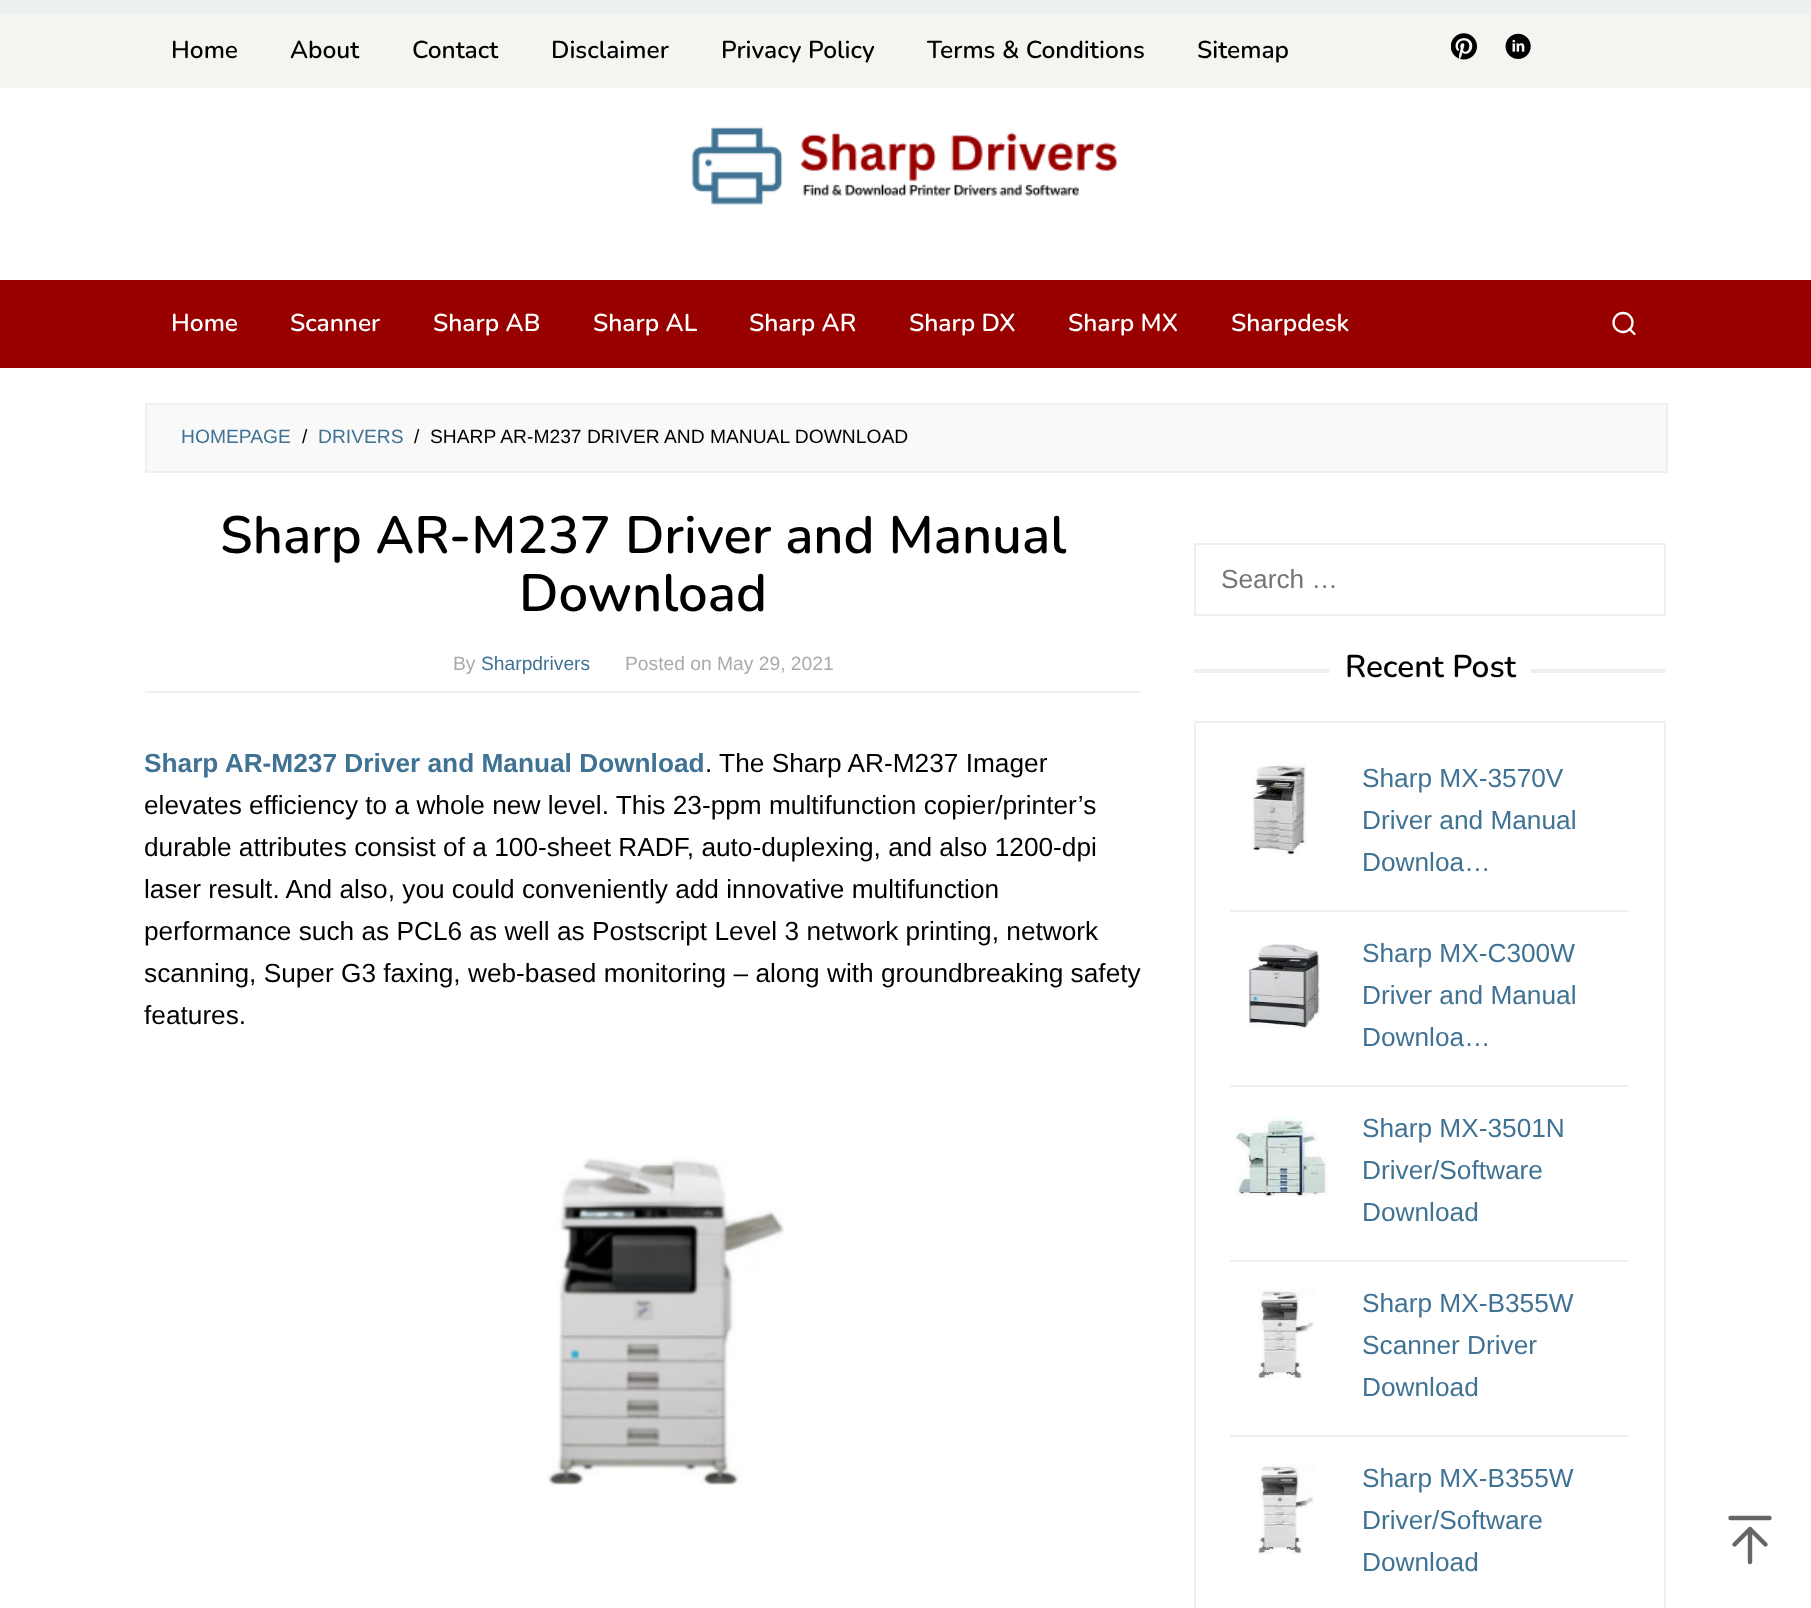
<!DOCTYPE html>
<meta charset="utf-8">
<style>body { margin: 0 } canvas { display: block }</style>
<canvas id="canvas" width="1811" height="1608"></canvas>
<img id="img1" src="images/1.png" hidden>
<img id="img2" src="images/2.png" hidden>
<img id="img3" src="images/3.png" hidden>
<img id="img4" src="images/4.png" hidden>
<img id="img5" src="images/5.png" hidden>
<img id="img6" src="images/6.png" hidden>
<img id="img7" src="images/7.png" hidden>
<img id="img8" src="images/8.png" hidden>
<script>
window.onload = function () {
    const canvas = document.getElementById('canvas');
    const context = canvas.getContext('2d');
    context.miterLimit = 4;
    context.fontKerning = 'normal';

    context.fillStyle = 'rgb(236, 240, 241)';
    context.fillRect(0, 0, 1811, 1608);
    context.fillStyle = 'rgb(255, 255, 255)';
    context.fillRect(0, 88, 1811, 192);
    context.fillStyle = 'rgb(246, 244, 241)';
    context.fillRect(0, 14, 1811, 74);
    context.drawImage(document.getElementById('img1'), 1451, 33, 26, 27);
    context.drawImage(document.getElementById('img2'), 1505, 33, 26, 26);
    context.drawImage(document.getElementById('img3'), 691, 126, 426, 79);
    context.fillStyle = 'rgb(153, 0, 0)';
    context.fillRect(0, 280, 1811, 88);
    context.beginPath();
    context.arc(1623, 322.5, 9.5, 0, 2 * Math.PI);
    context.strokeStyle = 'rgb(255, 255, 255)';
    context.lineWidth = 2.3;
    context.stroke();
    context.beginPath();
    context.moveTo(1634.5, 334);
    context.lineTo(1629.5, 329);
    context.lineCap = 'round';
    context.lineJoin = 'round';
    context.stroke();
    context.fillStyle = 'rgb(255, 255, 255)';
    context.fillRect(0, 368, 1811, 1240);
    context.fillStyle = 'rgb(249, 249, 249)';
    context.beginPath();
    context.rect(146, 404, 1521, 68);
    context.fill();
    context.strokeStyle = 'rgb(236, 240, 241)';
    context.lineWidth = 2;
    context.lineJoin = 'miter';
    context.stroke();
    context.fillStyle = 'rgb(236, 240, 241)';
    context.fillRect(145, 691, 996, 2);
    context.drawImage(document.getElementById('img4'), 547, 1158, 238, 327);
    context.strokeRect(1195, 544, 470, 71);
    context.fillRect(1194, 669, 136, 4);
    context.fillRect(1531, 669, 135, 4);
    context.strokeRect(1195, 722, 470, 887);
    context.fillRect(1230, 910, 399, 2);
    context.drawImage(document.getElementById('img5'), 1251, 763, 56, 94);
    context.fillRect(1230, 1085, 399, 2);
    context.drawImage(document.getElementById('img6'), 1247, 944, 73, 84);
    context.fillRect(1230, 1260, 399, 2);
    context.drawImage(document.getElementById('img7'), 1234, 1116, 94, 81);
    context.fillRect(1230, 1435, 399, 2);
    context.drawImage(document.getElementById('img8'), 1258, 1289, 56, 91);
    context.drawImage(document.getElementById('img8'), 1258, 1464, 56, 91);
    context.beginPath();
    context.moveTo(1750, 1562);
    context.lineTo(1750, 1529);
    context.moveTo(1734.5, 1544.5);
    context.lineTo(1750, 1529);
    context.lineTo(1765.5, 1544.5);
    context.moveTo(1730.5, 1518);
    context.lineTo(1769.5, 1518);
    context.strokeStyle = 'rgb(102, 102, 102)';
    context.lineWidth = 4.4;
    context.lineJoin = 'round';
    context.stroke();
    context.font = '600 24.5px Nunito';
    context.fillStyle = 'rgb(0, 0, 0)';
    context.fillText('Home', 171, 58);
    context.fillText('About', 290, 58);
    context.fillText('Contact', 412, 58);
    context.fillText('Disclaimer', 551, 58);
    context.fillText('Privacy Policy', 721, 58);
    context.fillText('Terms & Conditions', 927, 58);
    context.fillText('Sitemap', 1197, 58);
    context.fillStyle = 'rgb(255, 255, 255)';
    context.fillText('Home', 171, 331);
    context.fillText('Scanner', 290, 331);
    context.fillText('Sharp AB', 433, 331);
    context.fillText('Sharp AL', 593, 331);
    context.fillText('Sharp AR', 749, 331);
    context.fillText('Sharp DX', 909, 331);
    context.fillText('Sharp MX', 1068, 331);
    context.fillText('Sharpdesk', 1231, 331);
    context.font = '19.25px Liberation Sans';
    context.fillStyle = 'rgb(64, 114, 148)';
    context.fillText('HOMEPAGE', 181, 443);
    context.fillStyle = 'rgb(0, 0, 0)';
    context.fillText('/', 302, 443);
    context.fillStyle = 'rgb(64, 114, 148)';
    context.fillText('DRIVERS', 318, 443);
    context.fillStyle = 'rgb(0, 0, 0)';
    context.fillText('/', 414, 443);
    context.fillText('SHARP AR-M237 DRIVER AND MANUAL DOWNLOAD', 430, 443);
    context.font = '600 52.5px Nunito';
    context.fillText('Sharp AR-M237 Driver and Manual', 220, 553);
    context.fillText('Download', 519, 611);
    context.font = '19.25px Liberation Sans';
    context.fillStyle = 'rgb(170, 170, 170)';
    context.fillText('By', 453, 670);
    context.fillStyle = 'rgb(64, 114, 148)';
    context.fillText('Sharpdrivers', 481, 670);
    context.fillStyle = 'rgb(170, 170, 170)';
    context.fillText('Posted on May 29, 2021', 625, 670);
    context.font = 'bold 26.25px Liberation Sans';
    context.fillStyle = 'rgb(64, 114, 148)';
    context.fillText('Sharp AR-M237 Driver and Manual Download', 144, 772);
    context.font = '26.25px Liberation Sans';
    context.fillStyle = 'rgb(0, 0, 0)';
    context.fillText('. The Sharp AR-M237 Imager', 705, 772);
    context.fillText('elevates efficiency to a whole new level. This 23-ppm multifunction copier/printer’s', 144, 814);
    context.fillText('durable attributes consist of a 100-sheet RADF, auto-duplexing, and also 1200-dpi', 144, 856);
    context.fillText('laser result. And also, you could conveniently add innovative multifunction', 144, 898);
    context.fillText('performance such as PCL6 as well as Postscript Level 3 network printing, network', 144, 940);
    context.fillText('scanning, Super G3 faxing, web-based monitoring – along with groundbreaking safety', 144, 982);
    context.fillText('features.', 144, 1024);
    context.fillStyle = 'rgb(117, 117, 117)';
    context.fillText('Search …', 1221, 588);
    context.font = '600 31.5px Nunito';
    context.fillStyle = 'rgb(0, 0, 0)';
    context.fillText('Recent Post', 1345, 677);
    context.font = '26.25px Liberation Sans';
    context.fillStyle = 'rgb(64, 114, 148)';
    context.fillText('Sharp MX-3570V', 1362, 787);
    context.fillText('Driver and Manual', 1362, 829);
    context.fillText('Downloa…', 1362, 871);
    context.fillText('Sharp MX-C300W', 1362, 962);
    context.fillText('Driver and Manual', 1362, 1004);
    context.fillText('Downloa…', 1362, 1046);
    context.fillText('Sharp MX-3501N', 1362, 1137);
    context.fillText('Driver/Software', 1362, 1179);
    context.fillText('Download', 1362, 1221);
    context.fillText('Sharp MX-B355W', 1362, 1312);
    context.fillText('Scanner Driver', 1362, 1354);
    context.fillText('Download', 1362, 1396);
    context.fillText('Sharp MX-B355W', 1362, 1487);
    context.fillText('Driver/Software', 1362, 1529);
    context.fillText('Download', 1362, 1571);
};
</script>
